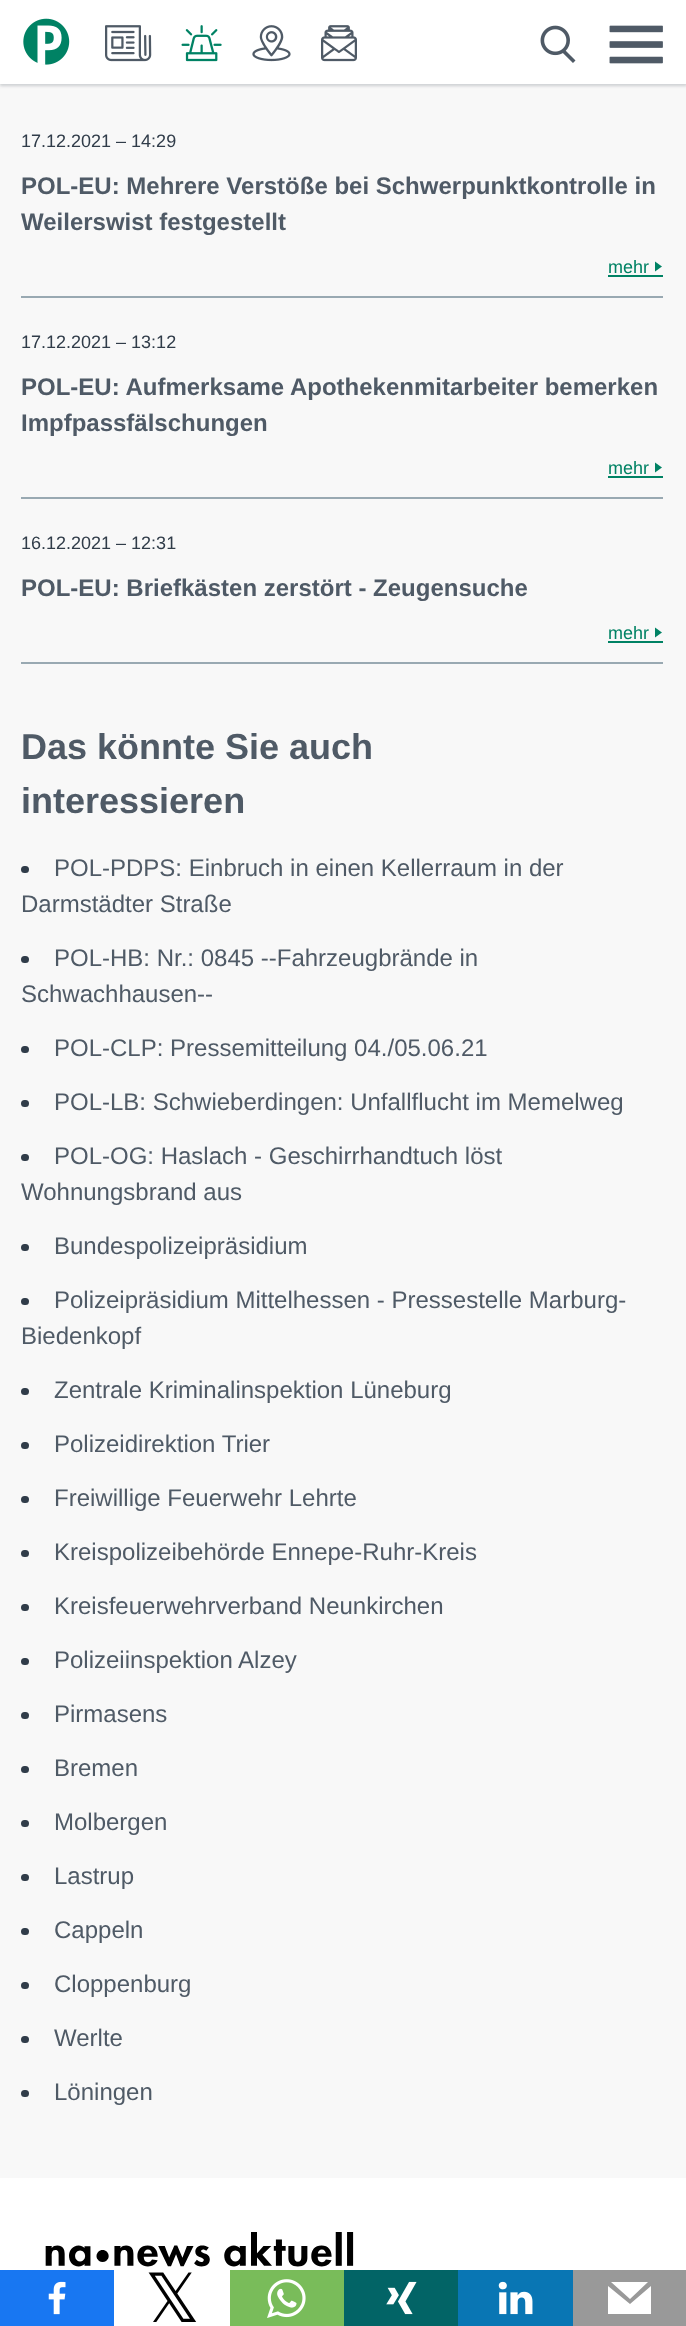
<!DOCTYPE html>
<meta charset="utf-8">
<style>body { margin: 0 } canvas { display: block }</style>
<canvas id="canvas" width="686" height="2326"></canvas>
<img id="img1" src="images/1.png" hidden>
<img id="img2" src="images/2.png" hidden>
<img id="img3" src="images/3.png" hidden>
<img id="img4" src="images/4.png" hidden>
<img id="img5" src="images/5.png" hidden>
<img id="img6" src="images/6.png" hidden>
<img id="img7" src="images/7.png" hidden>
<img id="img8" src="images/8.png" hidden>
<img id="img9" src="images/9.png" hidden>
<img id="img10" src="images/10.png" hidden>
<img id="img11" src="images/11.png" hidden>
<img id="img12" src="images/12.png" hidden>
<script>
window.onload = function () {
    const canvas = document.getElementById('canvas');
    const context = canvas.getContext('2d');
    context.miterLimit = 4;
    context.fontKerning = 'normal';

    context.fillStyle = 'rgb(248, 248, 248)';
    context.fillRect(0, 0, 686, 2326);
    context.fillStyle = 'rgba(79, 90, 102, 0.16)';
    context.filter = 'blur(1.5px)';
    context.beginPath();
    context.rect(0, 2, 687, 84);
    context.fill();
    context.filter = 'none';
    context.fillStyle = 'rgba(79, 90, 102, 0.1)';
    context.filter = 'blur(1.5px)';
    context.beginPath();
    context.rect(0, 2, 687, 84);
    context.fill();
    context.filter = 'none';
    context.fillStyle = 'rgb(255, 255, 255)';
    context.fillRect(0, 0, 686, 84);
    context.drawImage(document.getElementById('img1'), 23, 18, 47, 47);
    context.drawImage(document.getElementById('img2'), 105, 25, 47, 37);
    context.drawImage(document.getElementById('img3'), 181, 25, 41, 37);
    context.drawImage(document.getElementById('img4'), 252, 25, 39, 37);
    context.drawImage(document.getElementById('img5'), 321, 25, 36, 37);
    context.drawImage(document.getElementById('img6'), 540, 25, 36, 38);
    context.drawImage(document.getElementById('img7'), 609, 25, 54, 39);
    context.fillStyle = 'rgb(0, 130, 100)';
    context.fillRect(608, 275, 55, 2);
    context.beginPath();
    context.moveTo(655, 271.5);
    context.lineTo(655, 261.5);
    context.lineTo(662, 266.5);
    context.closePath();
    context.fill();
    context.fillStyle = 'rgb(153, 169, 178)';
    context.fillRect(21, 296, 642, 2);
    context.fillStyle = 'rgb(0, 130, 100)';
    context.fillRect(608, 476, 55, 2);
    context.beginPath();
    context.moveTo(655, 472.5);
    context.lineTo(655, 462.5);
    context.lineTo(662, 467.5);
    context.closePath();
    context.fill();
    context.fillStyle = 'rgb(153, 169, 178)';
    context.fillRect(21, 497, 642, 2);
    context.fillStyle = 'rgb(0, 130, 100)';
    context.fillRect(608, 641, 55, 2);
    context.beginPath();
    context.moveTo(655, 637.5);
    context.lineTo(655, 627.5);
    context.lineTo(662, 632.5);
    context.closePath();
    context.fill();
    context.fillStyle = 'rgb(153, 169, 178)';
    context.fillRect(21, 662, 642, 2);
    context.fillStyle = 'rgb(48, 60, 73)';
    context.beginPath();
    context.roundRect(21, 866, 8, 7, 3.5);
    context.fill();
    context.beginPath();
    context.roundRect(21, 956, 8, 7, 3.5);
    context.fill();
    context.beginPath();
    context.roundRect(21, 1046, 8, 7, 3.5);
    context.fill();
    context.beginPath();
    context.roundRect(21, 1100, 8, 7, 3.5);
    context.fill();
    context.beginPath();
    context.roundRect(21, 1154, 8, 7, 3.5);
    context.fill();
    context.beginPath();
    context.roundRect(21, 1244, 8, 7, 3.5);
    context.fill();
    context.beginPath();
    context.roundRect(21, 1298, 8, 7, 3.5);
    context.fill();
    context.beginPath();
    context.roundRect(21, 1388, 8, 7, 3.5);
    context.fill();
    context.beginPath();
    context.roundRect(21, 1442, 8, 7, 3.5);
    context.fill();
    context.beginPath();
    context.roundRect(21, 1496, 8, 7, 3.5);
    context.fill();
    context.beginPath();
    context.roundRect(21, 1550, 8, 7, 3.5);
    context.fill();
    context.beginPath();
    context.roundRect(21, 1604, 8, 7, 3.5);
    context.fill();
    context.beginPath();
    context.roundRect(21, 1658, 8, 7, 3.5);
    context.fill();
    context.beginPath();
    context.roundRect(21, 1712, 8, 7, 3.5);
    context.fill();
    context.beginPath();
    context.roundRect(21, 1766, 8, 7, 3.5);
    context.fill();
    context.beginPath();
    context.roundRect(21, 1820, 8, 7, 3.5);
    context.fill();
    context.beginPath();
    context.roundRect(21, 1874, 8, 7, 3.5);
    context.fill();
    context.beginPath();
    context.roundRect(21, 1928, 8, 7, 3.5);
    context.fill();
    context.beginPath();
    context.roundRect(21, 1982, 8, 7, 3.5);
    context.fill();
    context.beginPath();
    context.roundRect(21, 2036, 8, 7, 3.5);
    context.fill();
    context.beginPath();
    context.roundRect(21, 2090, 8, 7, 3.5);
    context.fill();
    context.fillStyle = 'rgb(255, 255, 255)';
    context.fillRect(114, 2270, 116, 56);
    context.fillStyle = 'rgb(24, 119, 242)';
    context.fillRect(0, 2270, 114, 56);
    context.drawImage(document.getElementById('img8'), 48, 2281, 18, 34);
    context.fillStyle = 'rgb(121, 188, 90)';
    context.fillRect(230, 2270, 114, 56);
    context.drawImage(document.getElementById('img9'), 267, 2279, 39, 39);
    context.fillStyle = 'rgb(2, 100, 102)';
    context.fillRect(344, 2270, 114, 56);
    context.drawImage(document.getElementById('img10'), 386, 2281, 31, 34);
    context.fillStyle = 'rgb(9, 118, 180)';
    context.fillRect(458, 2270, 115, 56);
    context.drawImage(document.getElementById('img11'), 498, 2281, 35, 34);
    context.fillStyle = 'rgb(153, 153, 153)';
    context.fillRect(573, 2270, 113, 56);
    context.fillStyle = 'rgb(255, 255, 255)';
    context.beginPath();
    context.moveTo(651, 2314);
    context.lineTo(608, 2314);
    context.lineTo(608, 2286);
    context.lineTo(630, 2304);
    context.lineTo(651, 2286);
    context.closePath();
    context.moveTo(630, 2299);
    context.lineTo(611, 2282);
    context.lineTo(648, 2282);
    context.closePath();
    context.fill();
    context.fillRect(0, 2178, 686, 92);
    context.drawImage(document.getElementById('img12'), 45, 2232, 309, 35);
    context.font = '18px Liberation Sans';
    context.fillStyle = 'rgb(48, 60, 73)';
    context.fillText('17.12.2021 – 14:29', 21, 147);
    context.font = 'bold 24px Liberation Sans';
    context.fillStyle = 'rgb(79, 90, 102)';
    context.fillText('POL-EU: Mehrere Verstöße bei Schwerpunktkontrolle in', 21, 194);
    context.fillText('Weilerswist festgestellt', 21, 230);
    context.font = '18px Liberation Sans';
    context.fillStyle = 'rgb(0, 130, 100)';
    context.fillText('mehr', 608, 273);
    context.fillStyle = 'rgb(48, 60, 73)';
    context.fillText('17.12.2021 – 13:12', 21, 348);
    context.font = 'bold 24px Liberation Sans';
    context.fillStyle = 'rgb(79, 90, 102)';
    context.fillText('POL-EU: Aufmerksame Apothekenmitarbeiter bemerken', 21, 395);
    context.fillText('Impfpassfälschungen', 21, 431);
    context.font = '18px Liberation Sans';
    context.fillStyle = 'rgb(0, 130, 100)';
    context.fillText('mehr', 608, 474);
    context.fillStyle = 'rgb(48, 60, 73)';
    context.fillText('16.12.2021 – 12:31', 21, 549);
    context.font = 'bold 24px Liberation Sans';
    context.fillStyle = 'rgb(79, 90, 102)';
    context.fillText('POL-EU: Briefkästen zerstört - Zeugensuche', 21, 596);
    context.font = '18px Liberation Sans';
    context.fillStyle = 'rgb(0, 130, 100)';
    context.fillText('mehr', 608, 639);
    context.font = 'bold 36px Liberation Sans';
    context.fillStyle = 'rgb(79, 90, 102)';
    context.fillText('Das könnte Sie auch', 21, 759);
    context.fillText('interessieren', 21, 813);
    context.font = '24px Liberation Sans';
    context.fillText('POL-PDPS: Einbruch in einen Kellerraum in der', 54, 876);
    context.fillText('Darmstädter Straße', 21, 912);
    context.fillText('POL-HB: Nr.: 0845 --Fahrzeugbrände in', 54, 966);
    context.fillText('Schwachhausen--', 21, 1002);
    context.fillText('POL-CLP: Pressemitteilung 04./05.06.21', 54, 1056);
    context.fillText('POL-LB: Schwieberdingen: Unfallflucht im Memelweg', 54, 1110);
    context.fillText('POL-OG: Haslach - Geschirrhandtuch löst', 54, 1164);
    context.fillText('Wohnungsbrand aus', 21, 1200);
    context.fillText('Bundespolizeipräsidium', 54, 1254);
    context.fillText('Polizeipräsidium Mittelhessen - Pressestelle Marburg-', 54, 1308);
    context.fillText('Biedenkopf', 21, 1344);
    context.fillText('Zentrale Kriminalinspektion Lüneburg', 54, 1398);
    context.fillText('Polizeidirektion Trier', 54, 1452);
    context.fillText('Freiwillige Feuerwehr Lehrte', 54, 1506);
    context.fillText('Kreispolizeibehörde Ennepe-Ruhr-Kreis', 54, 1560);
    context.fillText('Kreisfeuerwehrverband Neunkirchen', 54, 1614);
    context.fillText('Polizeiinspektion Alzey', 54, 1668);
    context.fillText('Pirmasens', 54, 1722);
    context.fillText('Bremen', 54, 1776);
    context.fillText('Molbergen', 54, 1830);
    context.fillText('Lastrup', 54, 1884);
    context.fillText('Cappeln', 54, 1938);
    context.fillText('Cloppenburg', 54, 1992);
    context.fillText('Werlte', 54, 2046);
    context.fillText('Löningen', 54, 2100);
    context.font = '68px DejaVu Sans';
    context.fillStyle = 'rgb(0, 0, 0)';
    context.fillText('𝕏', 145, 2322);
};
</script>
